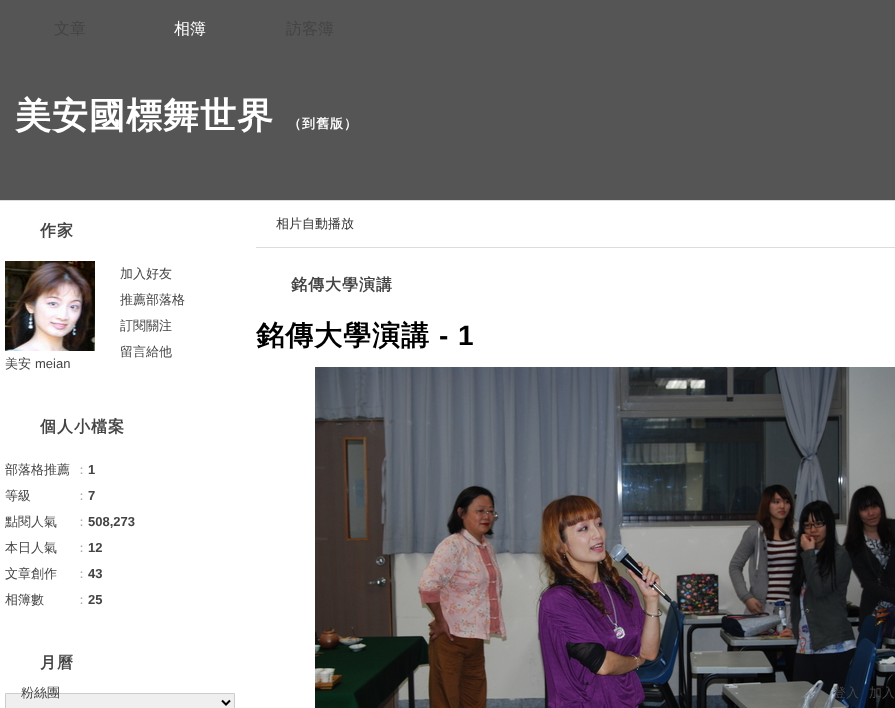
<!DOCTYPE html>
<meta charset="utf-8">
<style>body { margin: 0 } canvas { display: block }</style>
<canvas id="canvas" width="895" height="708"></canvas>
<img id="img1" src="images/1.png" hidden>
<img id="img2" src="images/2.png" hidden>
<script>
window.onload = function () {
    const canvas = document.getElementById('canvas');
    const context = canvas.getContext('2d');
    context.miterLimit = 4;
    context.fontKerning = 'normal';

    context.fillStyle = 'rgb(85, 85, 85)';
    context.fillRect(0, 0, 895, 708);
    context.fillStyle = 'rgb(221, 221, 221)';
    context.fillRect(0, 200, 895, 1);
    context.fillStyle = 'rgb(255, 255, 255)';
    context.fillRect(0, 201, 895, 507);
    context.drawImage(document.getElementById('img1'), 5, 261, 90, 90);
    context.fillStyle = 'rgb(239, 239, 239)';
    context.beginPath();
    context.rect(5.5, 693.5, 229, 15);
    context.fill();
    context.strokeStyle = 'rgb(204, 204, 204)';
    context.stroke();
    context.beginPath();
    context.moveTo(222, 700.5);
    context.lineTo(226, 704.5);
    context.lineTo(230, 700.5);
    context.strokeStyle = 'rgb(0, 0, 0)';
    context.lineWidth = 2;
    context.stroke();
    context.fillStyle = 'rgb(221, 221, 221)';
    context.fillRect(256, 247, 639, 1);
    context.drawImage(document.getElementById('img2'), 315, 367, 580, 341);
    context.font = '500 16px WenQuanYi Zen Hei';
    context.fillStyle = 'rgb(68, 68, 68)';
    context.fillText('文章', 54, 34);
    context.fillStyle = 'rgb(255, 255, 255)';
    context.fillText('相簿', 174, 34);
    context.fillStyle = 'rgb(68, 68, 68)';
    context.fillText('訪客簿', 286, 34);
    context.letterSpacing = '1px';
    context.font = 'bold 36px WenQuanYi Zen Hei';
    context.fillStyle = 'rgb(255, 255, 255)';
    context.fillText('美安國標舞世界', 15, 128);
    context.font = 'bold 13px WenQuanYi Zen Hei';
    context.fillText('（到舊版）', 288, 128);
    context.font = 'bold 16px WenQuanYi Zen Hei';
    context.fillStyle = 'rgb(68, 68, 68)';
    context.fillText('作家', 40, 236);
    context.letterSpacing = '0px';
    context.font = '500 13px WenQuanYi Zen Hei';
    context.fillText('加入好友', 120, 278);
    context.fillText('推薦部落格', 120, 304);
    context.fillText('訂閱關注', 120, 330);
    context.fillText('留言給他', 120, 356);
    context.fillText('美安', 5, 368);
    context.font = '13px Liberation Sans';
    context.fillText('meian', 35, 368);
    context.letterSpacing = '1px';
    context.font = 'bold 16px WenQuanYi Zen Hei';
    context.fillText('個人小檔案', 40, 432);
    context.letterSpacing = '0px';
    context.font = '500 13px WenQuanYi Zen Hei';
    context.fillText('部落格推薦', 5, 474);
    context.fillStyle = 'rgb(170, 170, 170)';
    context.fillText('：', 75, 474);
    context.font = 'bold 13px Liberation Sans';
    context.fillStyle = 'rgb(68, 68, 68)';
    context.fillText('1', 88, 474);
    context.font = '500 13px WenQuanYi Zen Hei';
    context.fillText('等級', 5, 500);
    context.fillStyle = 'rgb(170, 170, 170)';
    context.fillText('：', 75, 500);
    context.font = 'bold 13px Liberation Sans';
    context.fillStyle = 'rgb(68, 68, 68)';
    context.fillText('7', 88, 500);
    context.font = '500 13px WenQuanYi Zen Hei';
    context.fillText('點閱人氣', 5, 526);
    context.fillStyle = 'rgb(170, 170, 170)';
    context.fillText('：', 75, 526);
    context.font = 'bold 13px Liberation Sans';
    context.fillStyle = 'rgb(68, 68, 68)';
    context.fillText('508,273', 88, 526);
    context.font = '500 13px WenQuanYi Zen Hei';
    context.fillText('本日人氣', 5, 552);
    context.fillStyle = 'rgb(170, 170, 170)';
    context.fillText('：', 75, 552);
    context.font = 'bold 13px Liberation Sans';
    context.fillStyle = 'rgb(68, 68, 68)';
    context.fillText('12', 88, 552);
    context.font = '500 13px WenQuanYi Zen Hei';
    context.fillText('文章創作', 5, 578);
    context.fillStyle = 'rgb(170, 170, 170)';
    context.fillText('：', 75, 578);
    context.font = 'bold 13px Liberation Sans';
    context.fillStyle = 'rgb(68, 68, 68)';
    context.fillText('43', 88, 578);
    context.font = '500 13px WenQuanYi Zen Hei';
    context.fillText('相簿數', 5, 604);
    context.fillStyle = 'rgb(170, 170, 170)';
    context.fillText('：', 75, 604);
    context.font = 'bold 13px Liberation Sans';
    context.fillStyle = 'rgb(68, 68, 68)';
    context.fillText('25', 88, 604);
    context.letterSpacing = '1px';
    context.font = 'bold 16px WenQuanYi Zen Hei';
    context.fillText('月曆', 40, 668);
    context.letterSpacing = '0px';
    context.font = '500 13px WenQuanYi Zen Hei';
    context.fillStyle = 'rgb(51, 51, 51)';
    context.fillText('相片自動播放', 276, 228);
    context.letterSpacing = '1px';
    context.font = 'bold 16px WenQuanYi Zen Hei';
    context.fillStyle = 'rgb(68, 68, 68)';
    context.fillText('銘傳大學演講', 291, 290);
    context.font = 'bold 28px WenQuanYi Zen Hei';
    context.fillStyle = 'rgb(0, 0, 0)';
    context.fillText('銘傳大學演講', 256, 345);
    context.font = 'bold 28px Liberation Sans';
    context.fillText('- 1', 439, 345);
    context.letterSpacing = '0px';
    context.font = '500 13px WenQuanYi Zen Hei';
    context.fillStyle = 'rgb(68, 68, 68)';
    context.fillText('粉絲團', 21, 697);
    context.fillText('登入', 833, 697);
    context.fillText('加入', 869, 697);
};
</script>
